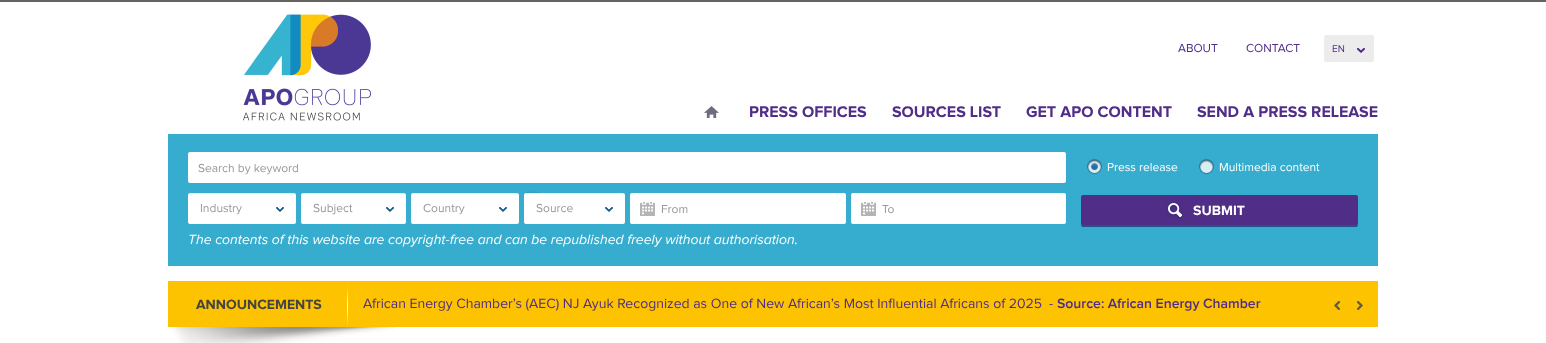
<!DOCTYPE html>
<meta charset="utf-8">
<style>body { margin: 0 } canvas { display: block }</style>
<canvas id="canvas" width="1546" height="343"></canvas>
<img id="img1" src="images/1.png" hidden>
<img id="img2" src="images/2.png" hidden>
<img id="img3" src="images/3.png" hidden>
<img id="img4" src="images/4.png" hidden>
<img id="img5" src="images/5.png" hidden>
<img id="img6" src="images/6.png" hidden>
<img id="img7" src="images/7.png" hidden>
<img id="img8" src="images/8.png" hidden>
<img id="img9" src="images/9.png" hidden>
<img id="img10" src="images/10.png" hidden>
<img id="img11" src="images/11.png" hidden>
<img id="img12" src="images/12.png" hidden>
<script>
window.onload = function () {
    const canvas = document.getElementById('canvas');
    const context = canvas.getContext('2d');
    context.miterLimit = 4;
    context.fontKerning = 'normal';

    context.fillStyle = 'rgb(255, 255, 255)';
    context.fillRect(0, 0, 1546, 343);
    context.fillStyle = 'rgb(99, 99, 98)';
    context.fillRect(0, 0, 1546, 2);
    context.drawImage(document.getElementById('img1'), 243, 14, 128, 107);
    context.fillStyle = 'rgb(236, 236, 236)';
    context.beginPath();
    context.roundRect(1324, 35, 50, 27, 2);
    context.fill();
    context.drawImage(document.getElementById('img2'), 1357, 48, 8, 5);
    context.drawImage(document.getElementById('img3'), 704, 106, 15, 12);
    context.fillStyle = 'rgb(54, 173, 206)';
    context.fillRect(168, 134, 1210, 132);
    context.fillStyle = 'rgb(255, 255, 255)';
    context.beginPath();
    context.roundRect(188, 152, 878, 31, 2);
    context.fill();
    context.beginPath();
    context.roundRect(188, 193, 108, 31, 2);
    context.fill();
    context.fillStyle = 'rgba(0, 0, 0, 0.07)';
    context.beginPath();
    context.moveTo(190, 194);
    context.lineTo(294, 194);
    context.bezierCurveTo(295, 194, 296, 195, 296, 196);
    context.bezierCurveTo(296, 195, 296, 193, 294, 193);
    context.lineTo(190, 193);
    context.bezierCurveTo(188, 193, 188, 195, 188, 196);
    context.bezierCurveTo(188, 195, 189, 194, 190, 194);
    context.closePath();
    context.fill();
    context.drawImage(document.getElementById('img4'), 276, 207, 8, 5);
    context.fillStyle = 'rgb(255, 255, 255)';
    context.beginPath();
    context.roundRect(301, 193, 105, 31, 2);
    context.fill();
    context.fillStyle = 'rgba(0, 0, 0, 0.07)';
    context.beginPath();
    context.moveTo(303, 194);
    context.lineTo(404, 194);
    context.bezierCurveTo(405, 194, 406, 195, 406, 196);
    context.bezierCurveTo(406, 195, 406, 193, 404, 193);
    context.lineTo(303, 193);
    context.bezierCurveTo(301, 193, 301, 195, 301, 196);
    context.bezierCurveTo(301, 195, 302, 194, 303, 194);
    context.closePath();
    context.fill();
    context.drawImage(document.getElementById('img4'), 386, 207, 8, 5);
    context.fillStyle = 'rgb(255, 255, 255)';
    context.beginPath();
    context.roundRect(411, 193, 108, 31, 2);
    context.fill();
    context.fillStyle = 'rgba(0, 0, 0, 0.07)';
    context.beginPath();
    context.moveTo(413, 194);
    context.lineTo(517, 194);
    context.bezierCurveTo(518, 194, 519, 195, 519, 196);
    context.bezierCurveTo(519, 195, 519, 193, 517, 193);
    context.lineTo(413, 193);
    context.bezierCurveTo(411, 193, 411, 195, 411, 196);
    context.bezierCurveTo(411, 195, 412, 194, 413, 194);
    context.closePath();
    context.fill();
    context.drawImage(document.getElementById('img4'), 499, 207, 8, 5);
    context.fillStyle = 'rgb(255, 255, 255)';
    context.beginPath();
    context.roundRect(524, 193, 101, 31, 2);
    context.fill();
    context.fillStyle = 'rgba(0, 0, 0, 0.07)';
    context.beginPath();
    context.moveTo(526, 194);
    context.lineTo(623, 194);
    context.bezierCurveTo(624, 194, 625, 195, 625, 196);
    context.bezierCurveTo(625, 195, 625, 193, 623, 193);
    context.lineTo(542, 193);
    context.bezierCurveTo(541, 193, 524, 188, 524, 196);
    context.bezierCurveTo(524, 195, 525, 194, 526, 194);
    context.closePath();
    context.fill();
    context.drawImage(document.getElementById('img4'), 605, 207, 8, 5);
    context.fillStyle = 'rgb(255, 255, 255)';
    context.beginPath();
    context.roundRect(630, 193, 216, 31, 2);
    context.fill();
    context.drawImage(document.getElementById('img5'), 640, 202, 15, 14);
    context.beginPath();
    context.roundRect(851, 193, 215, 31, 2);
    context.fill();
    context.drawImage(document.getElementById('img5'), 861, 202, 15, 14);
    context.drawImage(document.getElementById('img6'), 1087, 159, 15, 15);
    context.drawImage(document.getElementById('img7'), 1199, 159, 15, 15);
    context.fillStyle = 'rgb(36, 82, 132)';
    context.beginPath();
    context.moveTo(1081, 223);
    context.bezierCurveTo(1081, 225, 1081, 227, 1083, 227);
    context.lineTo(1356, 227);
    context.bezierCurveTo(1358, 227, 1358, 225, 1358, 223);
    context.bezierCurveTo(1358, 224, 1357, 225, 1356, 225);
    context.lineTo(1083, 225);
    context.bezierCurveTo(1082, 225, 1081, 224, 1081, 223);
    context.closePath();
    context.fill();
    context.fillStyle = 'rgb(80, 45, 135)';
    context.beginPath();
    context.roundRect(1081, 195, 277, 30, 2);
    context.fill();
    context.drawImage(document.getElementById('img8'), 1166, 202, 17, 17);
    context.fillStyle = 'rgb(253, 195, 0)';
    context.fillRect(168, 281, 1210, 46);
    context.drawImage(document.getElementById('img9'), 347, 283, 1, 43);
    context.drawImage(document.getElementById('img10'), 1334, 301, 6, 9);
    context.drawImage(document.getElementById('img11'), 1357, 301, 6, 9);
    context.drawImage(document.getElementById('img12'), 172, 327, 224, 16);
    context.font = '12px Proxima Nova';
    context.fillStyle = 'rgb(80, 45, 135)';
    context.fillText('ABOUT', 1178, 52);
    context.fillText('CONTACT', 1246, 52);
    context.font = '10px Proxima Nova';
    context.fillText('EN', 1332, 52);
    context.font = 'bold 16px Proxima Nova';
    context.fillText('PRESS OFFICES', 749, 117);
    context.fillText('SOURCES LIST', 892, 117);
    context.fillText('GET APO CONTENT', 1026, 117);
    context.fillText('SEND A PRESS RELEASE', 1197, 117);
    context.font = '12px Proxima Nova';
    context.fillStyle = 'rgb(153, 153, 153)';
    context.fillText('Search by keyword', 198, 172);
    context.fillText('Industry', 200, 212);
    context.fillText('Subject', 313, 212);
    context.fillText('Country', 423, 212);
    context.fillText('Source', 536, 212);
    context.fillText('From', 661, 213);
    context.fillText('To', 882, 213);
    context.fillStyle = 'rgb(255, 255, 255)';
    context.fillText('Press release', 1107, 171);
    context.fillText('Multimedia content', 1219, 171);
    context.font = 'bold 14px Proxima Nova';
    context.fillText('SUBMIT', 1193, 215);
    context.font = 'italic 14px Proxima Nova';
    context.fillText('The contents of this website are copyright-free and can be republished freely without authorisation.', 188, 244);
    context.font = 'bold 14px Proxima Nova';
    context.fillStyle = 'rgb(68, 68, 68)';
    context.fillText('ANNOUNCEMENTS', 196, 309);
    context.font = '14px Proxima Nova';
    context.fillStyle = 'rgb(80, 45, 135)';
    context.fillText('African Energy Chamber’s (AEC) NJ Ayuk Recognized as One of New African’s Most Influential Africans of 2025', 363, 308);
    context.fillText('-', 1049, 308);
    context.font = '600 14px Proxima Nova';
    context.fillText('Source: African Energy Chamber', 1057, 308);
};
</script>
